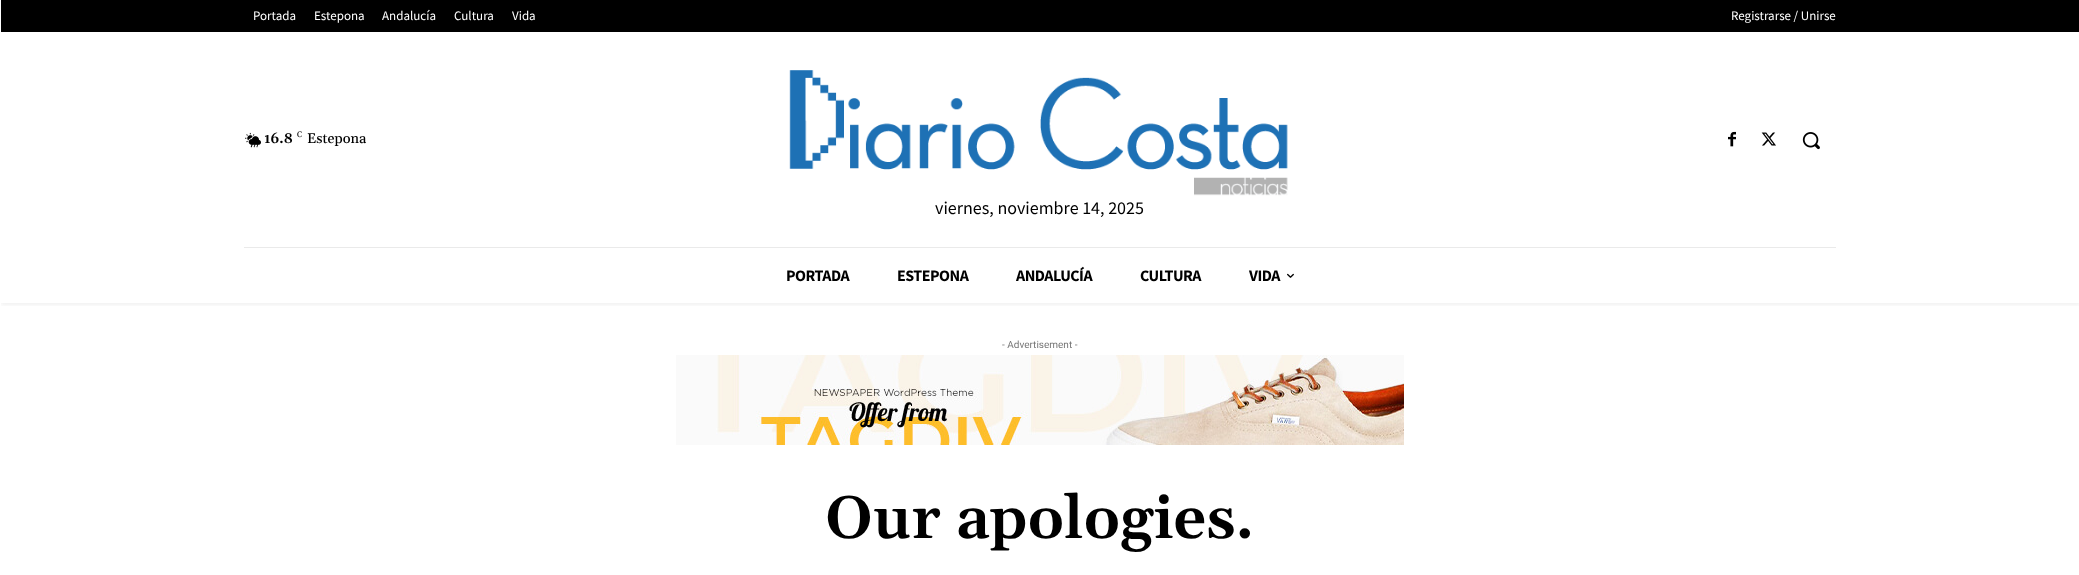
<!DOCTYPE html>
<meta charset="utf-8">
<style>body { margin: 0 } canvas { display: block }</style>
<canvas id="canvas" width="2079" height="575"></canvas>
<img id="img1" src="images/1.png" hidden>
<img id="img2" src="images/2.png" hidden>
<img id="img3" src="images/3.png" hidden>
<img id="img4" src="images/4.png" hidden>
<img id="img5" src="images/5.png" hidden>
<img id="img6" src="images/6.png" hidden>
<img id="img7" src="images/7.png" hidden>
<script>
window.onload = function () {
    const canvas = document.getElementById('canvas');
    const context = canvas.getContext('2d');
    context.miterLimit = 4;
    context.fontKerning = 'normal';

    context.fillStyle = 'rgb(255, 255, 255)';
    context.fillRect(0, 0, 2079, 575);
    context.fillStyle = 'rgb(0, 0, 0)';
    context.fillRect(1, 0, 2078, 32);
    context.drawImage(document.getElementById('img1'), 245, 132, 16, 16);
    context.drawImage(document.getElementById('img2'), 1728, 131, 8, 16);
    context.drawImage(document.getElementById('img3'), 1761, 132, 15, 14);
    context.drawImage(document.getElementById('img4'), 1802, 132, 18, 18);
    context.drawImage(document.getElementById('img5'), 789, 70, 499, 126);
    context.fillStyle = 'rgb(234, 234, 234)';
    context.fillRect(244, 247, 1592, 1);
    context.save();
    context.beginPath();
    context.rect(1, 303, 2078, 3);
    context.clip();
    context.fillStyle = 'rgba(0, 0, 0, 0.06)';
    context.filter = 'blur(2px)';
    context.beginPath();
    context.rect(1, 219, 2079, 86);
    context.fill();
    context.filter = 'none';
    context.restore();
    context.drawImage(document.getElementById('img6'), 1287, 273, 7, 5);
    context.drawImage(document.getElementById('img7'), 676, 355, 728, 90);
    context.font = '13px Source Sans Pro';
    context.fillStyle = 'rgb(255, 255, 255)';
    context.fillText('Portada', 253, 20);
    context.fillText('Estepona', 314, 20);
    context.fillText('Andalucía', 382, 20);
    context.fillText('Cultura', 454, 20);
    context.fillText('Vida', 512, 20);
    context.fillText('Registrarse / Unirse', 1731, 20);
    context.font = '600 14px Gelasio';
    context.fillStyle = 'rgb(0, 0, 0)';
    context.fillText('16.8', 264, 143);
    context.font = '8px Gelasio';
    context.fillText('C', 297, 137);
    context.font = '500 14px Gelasio';
    context.fillText('Estepona', 307, 143);
    context.font = '18px Source Sans Pro';
    context.fillText('viernes, noviembre 14, 2025', 935, 214);
    context.letterSpacing = '-0.5px';
    context.font = 'bold 16px Source Sans Pro';
    context.fillText('PORTADA', 786, 281);
    context.fillText('ESTEPONA', 897, 281);
    context.fillText('ANDALUCÍA', 1016, 281);
    context.fillText('CULTURA', 1140, 281);
    context.fillText('VIDA', 1249, 281);
    context.letterSpacing = '0px';
    context.font = '10px Roboto';
    context.fillStyle = 'rgb(118, 118, 118)';
    context.fillText('- Advertisement -', 1002, 348);
    context.font = '600 60px Gelasio';
    context.fillStyle = 'rgb(0, 0, 0)';
    context.fillText('Our apologies.', 825, 538);
};
</script>
